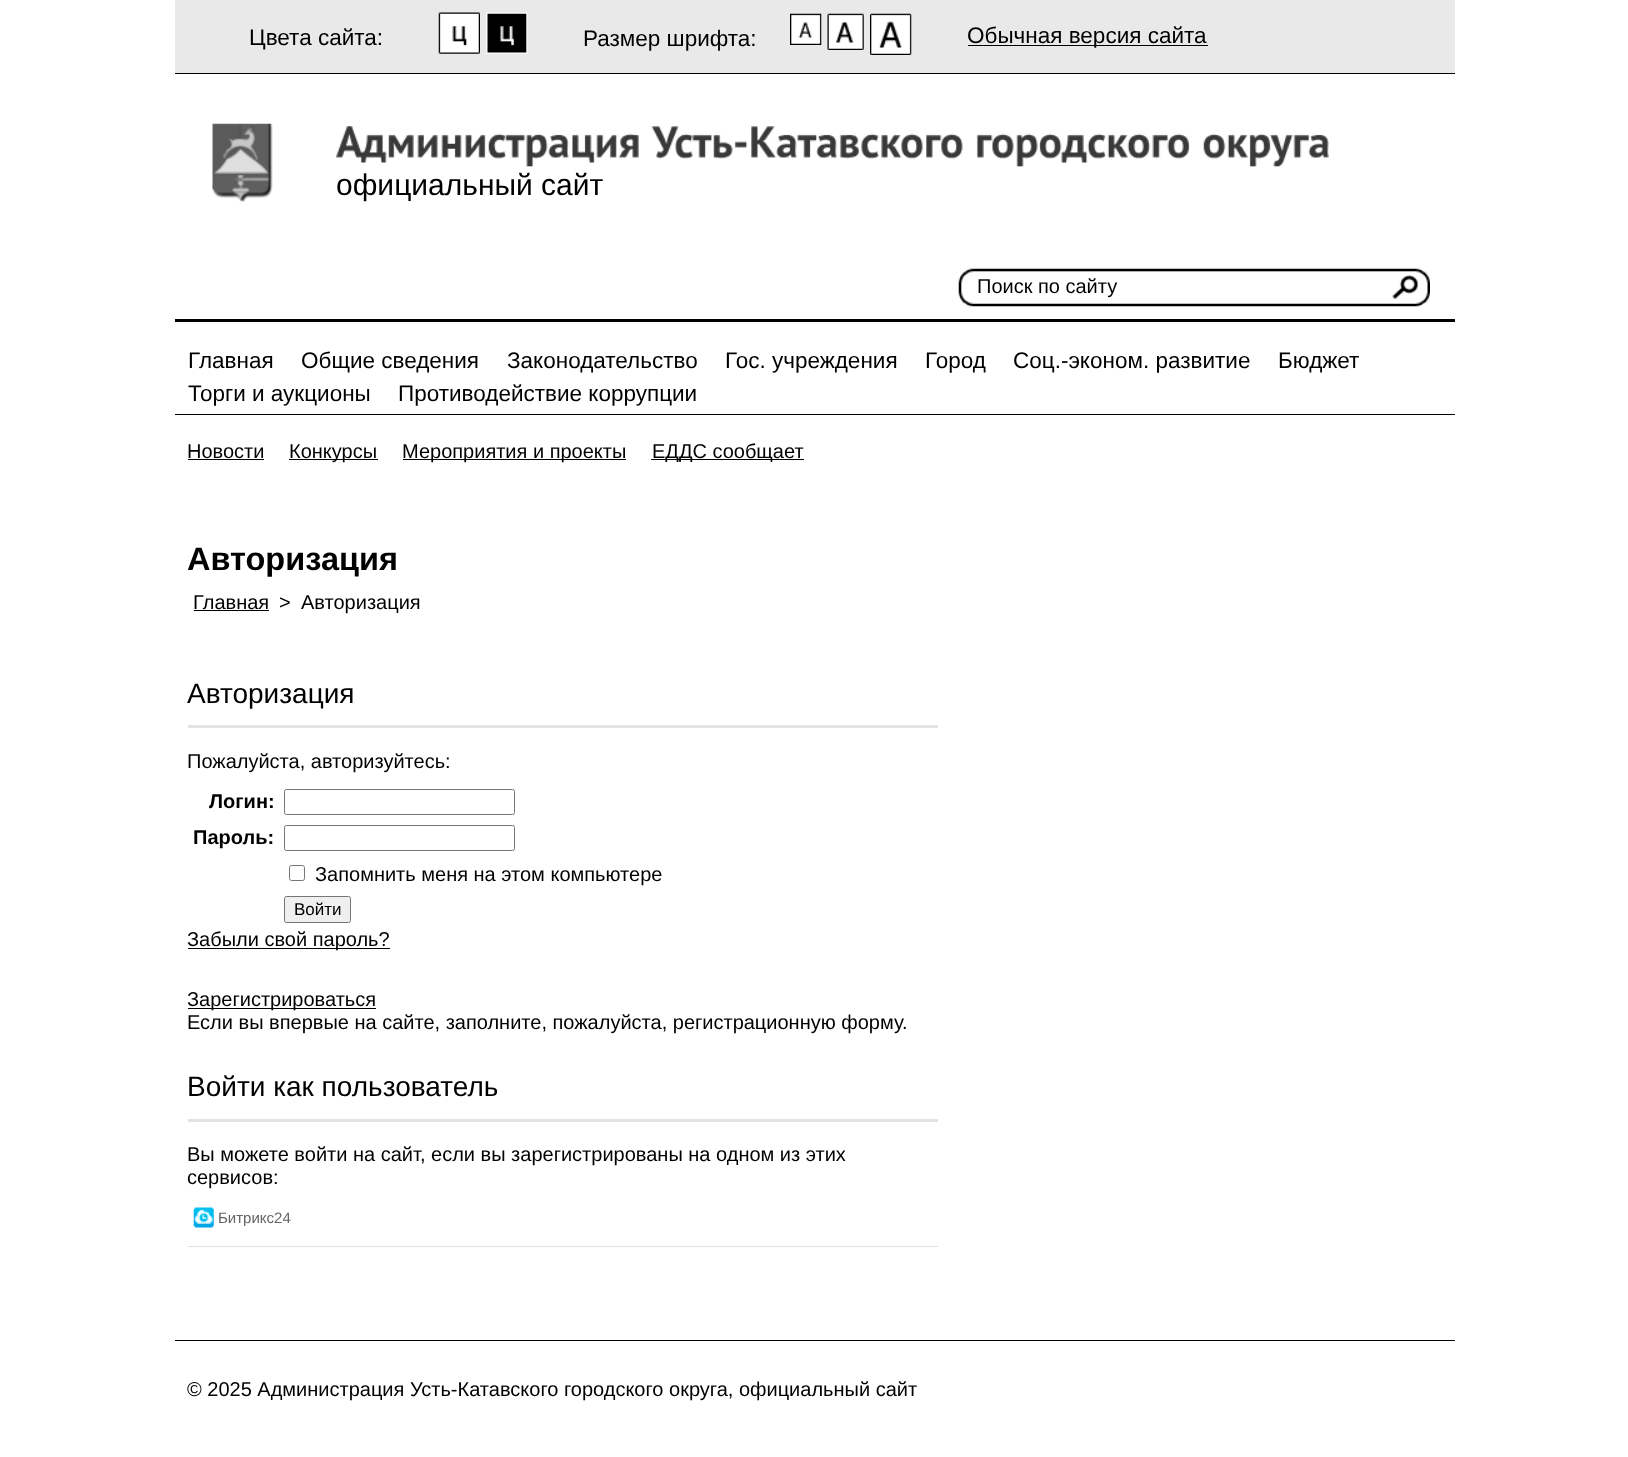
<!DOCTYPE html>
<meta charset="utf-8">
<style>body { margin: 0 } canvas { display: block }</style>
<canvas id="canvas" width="1628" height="1457"></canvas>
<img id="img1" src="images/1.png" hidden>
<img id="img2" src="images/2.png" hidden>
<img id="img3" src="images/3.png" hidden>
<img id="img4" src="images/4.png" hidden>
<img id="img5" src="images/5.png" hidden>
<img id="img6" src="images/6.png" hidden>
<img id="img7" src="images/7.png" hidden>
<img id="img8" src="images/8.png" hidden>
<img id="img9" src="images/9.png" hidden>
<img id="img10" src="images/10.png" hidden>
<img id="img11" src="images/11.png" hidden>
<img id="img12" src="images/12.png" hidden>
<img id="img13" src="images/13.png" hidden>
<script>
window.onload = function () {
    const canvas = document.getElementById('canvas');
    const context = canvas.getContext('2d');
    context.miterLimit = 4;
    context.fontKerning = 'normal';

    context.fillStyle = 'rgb(255, 255, 255)';
    context.fillRect(0, 0, 1628, 1457);
    context.fillStyle = 'rgb(233, 233, 233)';
    context.fillRect(175, 0, 1280, 73);
    context.fillStyle = 'rgb(0, 0, 0)';
    context.fillRect(175, 73, 1280, 1);
    context.drawImage(document.getElementById('img1'), 438, 12, 42, 42);
    context.drawImage(document.getElementById('img2'), 486, 12, 42, 42);
    context.drawImage(document.getElementById('img3'), 790, 13, 32, 32);
    context.drawImage(document.getElementById('img4'), 827, 13, 37, 37);
    context.drawImage(document.getElementById('img5'), 870, 13, 42, 42);
    context.fillRect(968, 45, 240, 1);
    context.drawImage(document.getElementById('img6'), 212, 123, 61, 79);
    context.drawImage(document.getElementById('img7'), 336, 126, 303, 41);
    context.drawImage(document.getElementById('img8'), 651, 126, 312, 33);
    context.drawImage(document.getElementById('img9'), 976, 133, 214, 34);
    context.drawImage(document.getElementById('img10'), 1203, 133, 126, 34);
    context.drawImage(document.getElementById('img11'), 958, 268, 472, 39);
    context.drawImage(document.getElementById('img12'), 1392, 275, 26, 24);
    context.fillRect(175, 319, 1280, 3);
    context.fillRect(175, 414, 1280, 1);
    context.fillRect(188, 459, 76, 1);
    context.fillRect(289, 459, 89, 1);
    context.fillRect(403, 459, 223, 1);
    context.fillRect(651, 459, 153, 1);
    context.fillRect(194, 610, 75, 1);
    context.fillStyle = 'rgb(227, 227, 227)';
    context.fillRect(188, 725, 750, 3);
    context.beginPath();
    context.roundRect(284.5, 789.5, 230, 25, 2);
    context.strokeStyle = 'rgb(118, 118, 118)';
    context.stroke();
    context.beginPath();
    context.roundRect(284.5, 825.5, 230, 25, 2);
    context.stroke();
    context.beginPath();
    context.roundRect(289.5, 865.5, 15, 15, 2);
    context.stroke();
    context.fillStyle = 'rgb(239, 239, 239)';
    context.beginPath();
    context.roundRect(284.5, 896.5, 66, 26, 2);
    context.fill();
    context.stroke();
    context.fillStyle = 'rgb(0, 0, 0)';
    context.fillRect(188, 948, 202, 1);
    context.fillRect(188, 1008, 188, 1);
    context.fillStyle = 'rgb(227, 227, 227)';
    context.fillRect(188, 1119, 750, 3);
    context.drawImage(document.getElementById('img13'), 193, 1207, 21, 21);
    context.fillRect(188, 1246, 750, 1);
    context.fillStyle = 'rgb(0, 0, 0)';
    context.fillRect(175, 1340, 1280, 1);
    context.font = '22.5px Liberation Sans';
    context.fillText('Цвета сайта:', 249, 45);
    context.fillText('Размер шрифта:', 583, 46);
    context.fillText('Обычная версия сайта', 967, 43);
    context.font = '30px Liberation Sans';
    context.fillText('официальный сайт', 336, 195);
    context.font = '20px Liberation Sans';
    context.fillText('Поиск по сайту', 977, 293);
    context.font = '22.5px Liberation Sans';
    context.fillText('Главная', 188, 368);
    context.fillText('Общие сведения', 301, 368);
    context.fillText('Законодательство', 507, 368);
    context.fillText('Гос. учреждения', 725, 368);
    context.fillText('Город', 925, 368);
    context.fillText('Соц.-эконом. развитие', 1013, 368);
    context.fillText('Бюджет', 1278, 368);
    context.fillText('Торги и аукционы', 188, 401);
    context.fillText('Противодействие коррупции', 398, 401);
    context.font = '20px Liberation Sans';
    context.fillText('Новости', 187, 458);
    context.fillText('Конкурсы', 289, 458);
    context.fillText('Мероприятия и проекты', 402, 458);
    context.fillText('ЕДДС сообщает', 652, 458);
    context.font = 'bold 32.5px Liberation Sans';
    context.fillText('Авторизация', 187, 570);
    context.font = '20px Liberation Sans';
    context.fillText('Главная', 193, 609);
    context.fillText('>', 279, 609);
    context.fillText('Авторизация', 301, 609);
    context.font = '28px Liberation Sans';
    context.fillText('Авторизация', 187, 703);
    context.font = '20px Liberation Sans';
    context.fillText('Пожалуйста, авторизуйтесь:', 187, 768);
    context.font = 'bold 20px Liberation Sans';
    context.fillText('Логин:', 209, 808);
    context.fillText('Пароль:', 193, 844);
    context.font = '20px Liberation Sans';
    context.fillText('Запомнить меня на этом компьютере', 315, 881);
    context.font = '17px Liberation Sans';
    context.fillText('Войти', 294, 915);
    context.font = '20px Liberation Sans';
    context.fillText('Забыли свой пароль?', 187, 946);
    context.fillText('Зарегистрироваться', 187, 1006);
    context.fillText('Если вы впервые на сайте, заполните, пожалуйста, регистрационную форму.', 187, 1029);
    context.font = '28px Liberation Sans';
    context.fillText('Войти как пользователь', 187, 1096);
    context.font = '20px Liberation Sans';
    context.fillText('Вы можете войти на сайт, если вы зарегистрированы на одном из этих', 187, 1161);
    context.fillText('сервисов:', 187, 1184);
    context.font = '15px Liberation Sans';
    context.fillStyle = 'rgb(100, 100, 100)';
    context.fillText('Битрикс24', 218, 1223);
    context.font = '20px Liberation Sans';
    context.fillStyle = 'rgb(0, 0, 0)';
    context.fillText('© 2025 Администрация Усть-Катавского городского округа, официальный сайт', 187, 1396);
};
</script>
